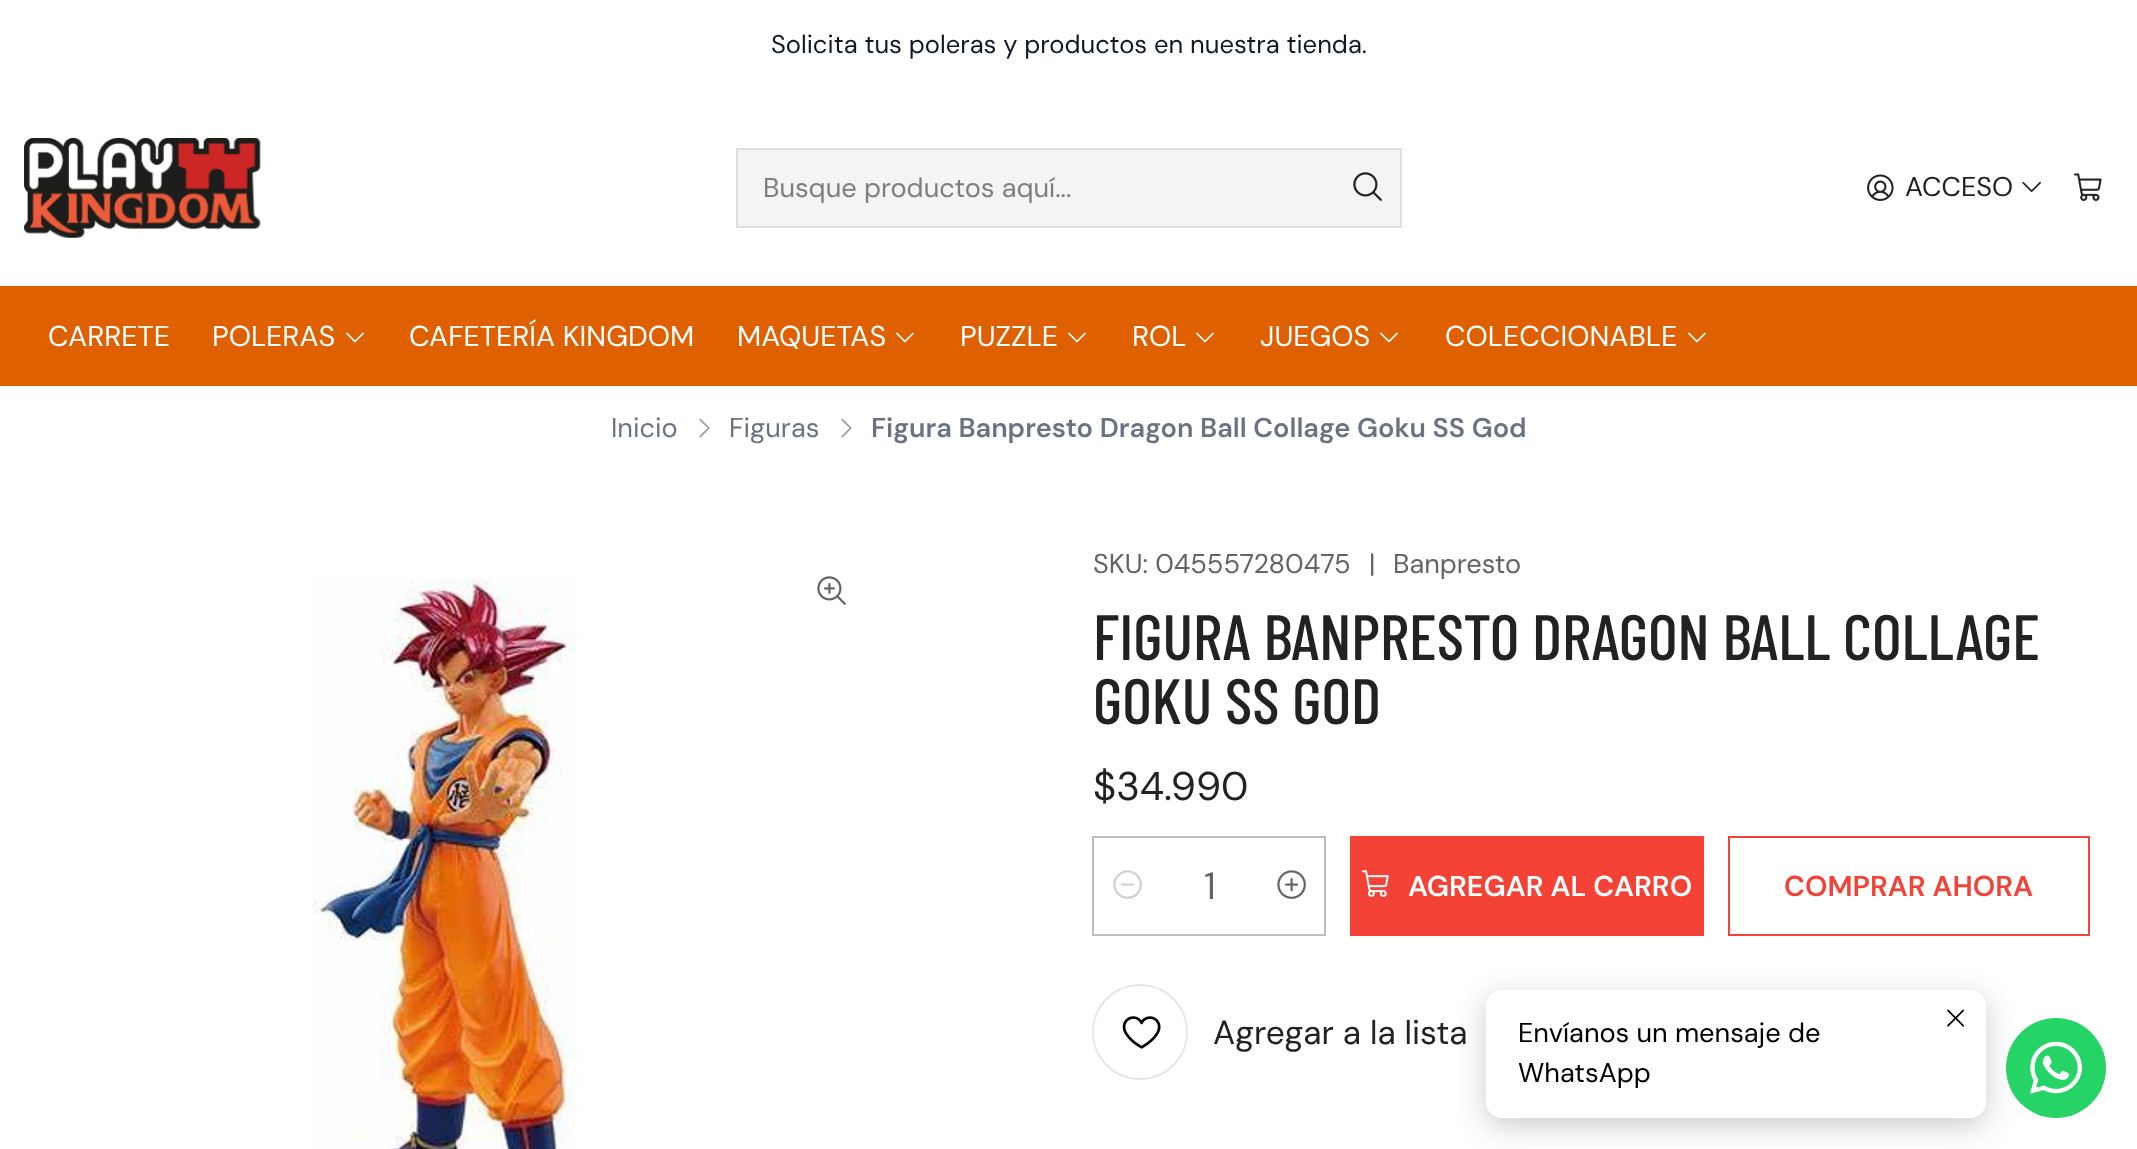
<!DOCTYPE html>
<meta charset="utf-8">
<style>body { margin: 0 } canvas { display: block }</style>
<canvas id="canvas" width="2137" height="1149"></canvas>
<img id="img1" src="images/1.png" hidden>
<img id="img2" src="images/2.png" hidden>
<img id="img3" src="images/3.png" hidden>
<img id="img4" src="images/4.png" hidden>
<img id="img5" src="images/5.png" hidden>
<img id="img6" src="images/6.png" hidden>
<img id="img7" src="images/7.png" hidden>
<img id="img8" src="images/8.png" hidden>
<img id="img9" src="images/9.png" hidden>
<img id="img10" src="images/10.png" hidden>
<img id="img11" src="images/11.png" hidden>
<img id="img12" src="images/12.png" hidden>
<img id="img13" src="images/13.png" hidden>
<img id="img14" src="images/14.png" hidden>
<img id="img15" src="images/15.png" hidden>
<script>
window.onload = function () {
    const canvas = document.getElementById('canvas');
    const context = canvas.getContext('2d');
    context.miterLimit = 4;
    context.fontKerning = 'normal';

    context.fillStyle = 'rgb(255, 255, 255)';
    context.fillRect(0, 0, 2137, 1149);
    context.drawImage(document.getElementById('img1'), 24, 138, 237, 100);
    context.fillStyle = 'rgb(244, 244, 244)';
    context.beginPath();
    context.rect(737, 149, 664, 78);
    context.fill();
    context.strokeStyle = 'rgb(223, 223, 223)';
    context.lineWidth = 2;
    context.stroke();
    context.drawImage(document.getElementById('img2'), 1353, 172, 29, 29);
    context.drawImage(document.getElementById('img3'), 1867, 174, 27, 27);
    context.drawImage(document.getElementById('img4'), 2022, 181, 19, 11);
    context.drawImage(document.getElementById('img5'), 2074, 173, 28, 28);
    context.fillStyle = 'rgb(222, 96, 0)';
    context.fillRect(0, 286, 2137, 100);
    context.drawImage(document.getElementById('img6'), 346, 332, 18, 11);
    context.drawImage(document.getElementById('img6'), 896, 332, 18, 11);
    context.drawImage(document.getElementById('img6'), 1068, 332, 18, 11);
    context.drawImage(document.getElementById('img6'), 1196, 332, 18, 11);
    context.drawImage(document.getElementById('img6'), 1380, 332, 18, 11);
    context.drawImage(document.getElementById('img6'), 1688, 332, 18, 11);
    context.drawImage(document.getElementById('img7'), 699, 418, 11, 20);
    context.drawImage(document.getElementById('img7'), 841, 418, 11, 20);
    context.drawImage(document.getElementById('img8'), 312, 579, 266, 570);
    context.drawImage(document.getElementById('img9'), 817, 576, 29, 29);
    context.strokeStyle = 'rgb(189, 189, 189)';
    context.strokeRect(1093, 837, 232, 98);
    context.drawImage(document.getElementById('img10'), 1113, 870, 29, 29);
    context.drawImage(document.getElementById('img11'), 1277, 870, 29, 29);
    context.fillStyle = 'rgb(244, 67, 54)';
    context.fillRect(1350, 836, 354, 100);
    context.drawImage(document.getElementById('img12'), 1362, 870, 27, 27);
    context.strokeStyle = 'rgb(244, 67, 54)';
    context.strokeRect(1729, 837, 360, 98);
    context.beginPath();
    context.arc(1140, 1032, 47, 0, 2 * Math.PI);
    context.strokeStyle = 'rgb(230, 230, 230)';
    context.stroke();
    context.drawImage(document.getElementById('img13'), 1122, 1016, 39, 33);
    context.fillStyle = 'rgba(0, 0, 0, 0.2)';
    context.filter = 'blur(15px)';
    context.beginPath();
    context.roundRect(1486, 998, 500, 128, 16);
    context.fill();
    context.filter = 'none';
    context.fillStyle = 'rgb(255, 255, 255)';
    context.beginPath();
    context.roundRect(1486, 990, 500, 128, 16);
    context.fill();
    context.drawImage(document.getElementById('img14'), 1947, 1009, 18, 18);
    context.fillStyle = 'rgb(37, 211, 102)';
    context.beginPath();
    context.arc(2056, 1068, 50, 0, 2 * Math.PI);
    context.fill();
    context.drawImage(document.getElementById('img15'), 2030, 1041, 52, 53);
    context.font = '25.6px DM Sans';
    context.fillStyle = 'rgb(17, 24, 39)';
    context.fillText('Solicita tus poleras y productos en nuestra tienda.', 771, 53);
    context.font = '27.2px DM Sans';
    context.fillStyle = 'rgb(126, 126, 126)';
    context.fillText('Busque productos aquí...', 763, 197);
    context.fillStyle = 'rgb(34, 34, 34)';
    context.fillText('ACCESO', 1905, 196);
    context.font = '28.75px DM Sans';
    context.fillStyle = 'rgb(255, 255, 255)';
    context.fillText('CARRETE', 48, 346);
    context.fillText('POLERAS', 212, 346);
    context.fillText('CAFETERÍA KINGDOM', 409, 346);
    context.fillText('MAQUETAS', 737, 346);
    context.fillText('PUZZLE', 960, 346);
    context.fillText('ROL', 1132, 346);
    context.fillText('JUEGOS', 1260, 346);
    context.fillText('COLECCIONABLE', 1445, 346);
    context.font = '27.2px DM Sans';
    context.fillStyle = 'rgb(107, 114, 128)';
    context.fillText('Inicio', 611, 437);
    context.fillText('Figuras', 729, 437);
    context.font = '600 27.2px DM Sans';
    context.fillText('Figura Banpresto Dragon Ball Collage Goku SS God', 871, 437);
    context.font = '27.2px DM Sans';
    context.fillStyle = 'rgb(100, 100, 100)';
    context.fillText('SKU: 045557280475', 1093, 573);
    context.fillText('|', 1369, 573);
    context.fillText('Banpresto', 1393, 573);
    context.font = '500 64px Barlow Condensed';
    context.fillStyle = 'rgb(34, 34, 34)';
    context.fillText('FIGURA BANPRESTO DRAGON BALL COLLAGE', 1093, 660);
    context.fillText('GOKU SS GOD', 1093, 724);
    context.font = '40px DM Sans';
    context.fillText('$34.990', 1093, 800);
    context.font = '38px DM Sans';
    context.fillStyle = 'rgb(100, 100, 100)';
    context.fillText('1', 1204, 899);
    context.font = '600 28.75px DM Sans';
    context.fillStyle = 'rgb(255, 255, 255)';
    context.fillText('AGREGAR AL CARRO', 1408, 896);
    context.fillStyle = 'rgb(244, 67, 54)';
    context.fillText('COMPRAR AHORA', 1784, 896);
    context.font = '33.5px DM Sans';
    context.fillStyle = 'rgb(34, 34, 34)';
    context.fillText('Agregar a la lista', 1213, 1044);
    context.font = '27.2px DM Sans';
    context.fillStyle = 'rgb(0, 0, 0)';
    context.fillText('Envíanos un mensaje de', 1518, 1042);
    context.fillText('WhatsApp', 1518, 1082);
};
</script>
